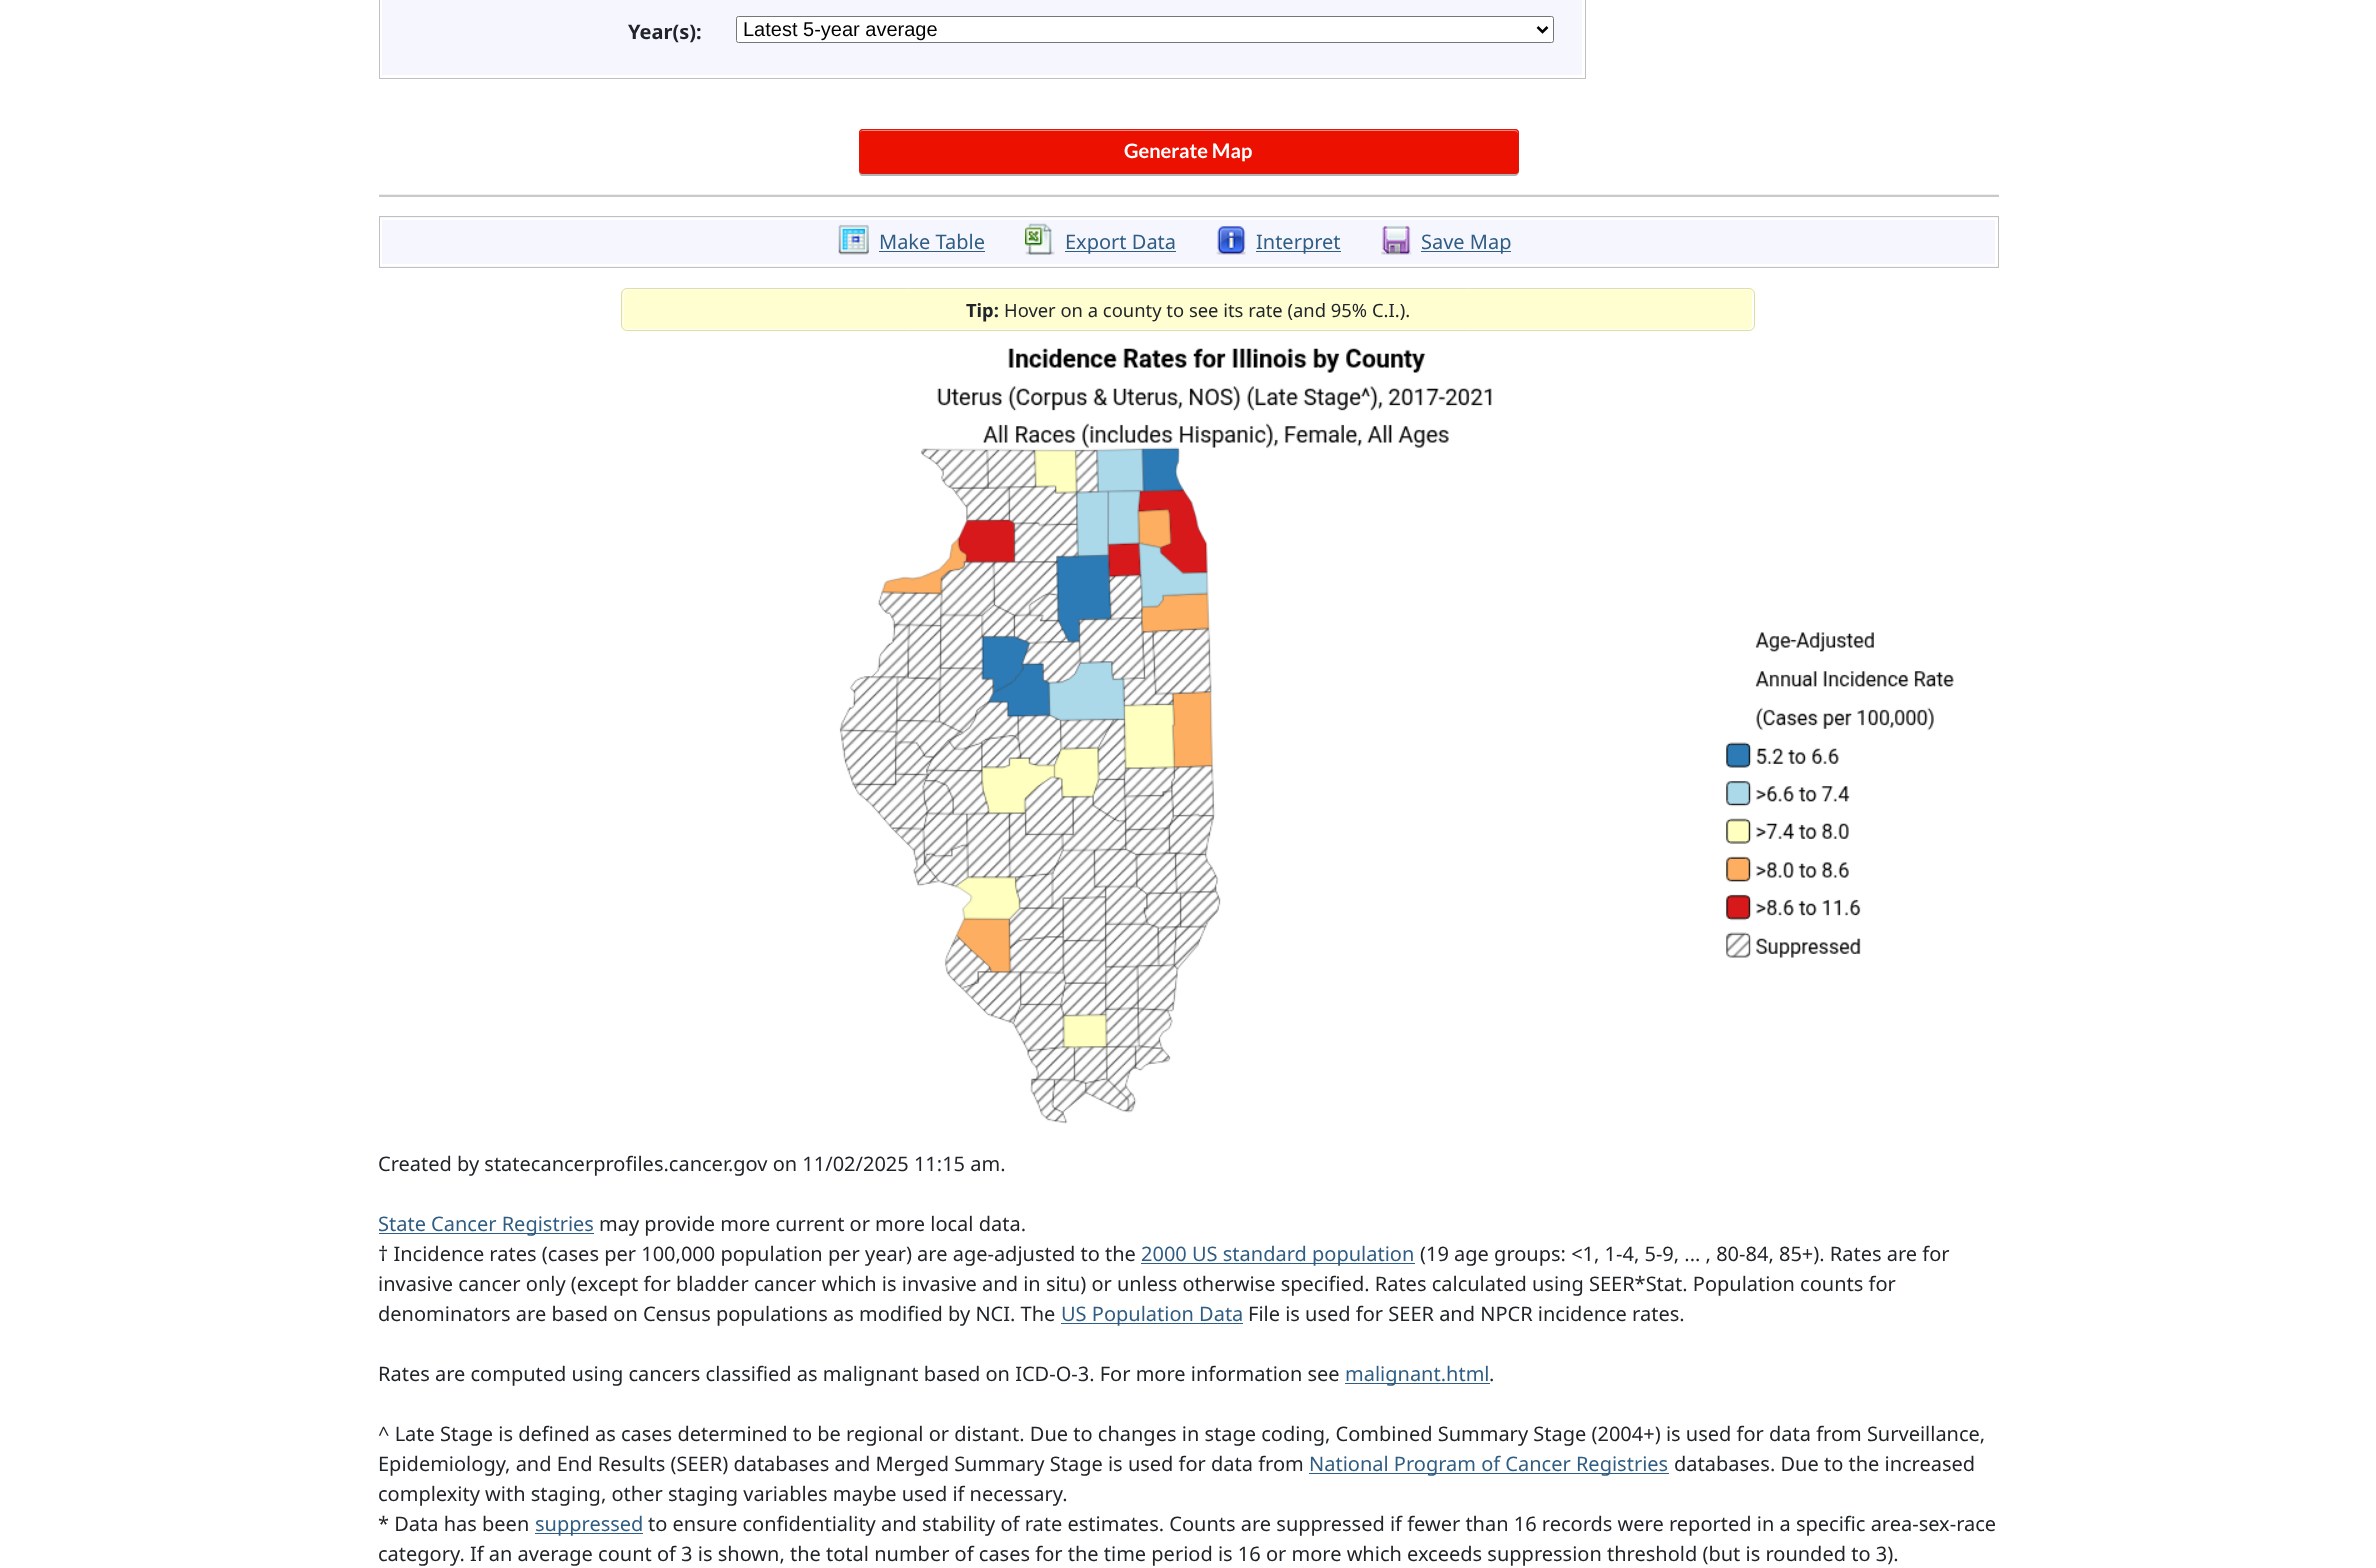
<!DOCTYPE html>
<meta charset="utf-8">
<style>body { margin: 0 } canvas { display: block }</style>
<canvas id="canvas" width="2376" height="1568"></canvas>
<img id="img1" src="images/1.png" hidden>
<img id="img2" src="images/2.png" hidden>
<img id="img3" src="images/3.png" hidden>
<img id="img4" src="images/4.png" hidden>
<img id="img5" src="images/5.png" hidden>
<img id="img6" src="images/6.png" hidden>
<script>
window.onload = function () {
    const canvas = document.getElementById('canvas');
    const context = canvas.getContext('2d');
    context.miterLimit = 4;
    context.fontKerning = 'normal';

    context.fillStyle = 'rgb(255, 255, 255)';
    context.fillRect(0, 0, 2376, 1568);
    context.fillStyle = 'rgb(246, 246, 255)';
    context.fillRect(382, 0, 1200, 75);
    context.strokeStyle = 'rgb(192, 192, 192)';
    context.strokeRect(379.5, -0.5, 1206, 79);
    context.fillStyle = 'rgb(255, 255, 255)';
    context.beginPath();
    context.roundRect(736.5, 16.5, 817, 26, 2);
    context.fill();
    context.strokeStyle = 'rgb(118, 118, 118)';
    context.stroke();
    context.beginPath();
    context.moveTo(1537.5, 27);
    context.lineTo(1542.5, 32);
    context.lineTo(1547.5, 27);
    context.strokeStyle = 'rgb(0, 0, 0)';
    context.lineWidth = 2.5;
    context.stroke();
    context.fillStyle = 'rgb(179, 179, 179)';
    context.beginPath();
    context.moveTo(859, 171);
    context.bezierCurveTo(859, 174, 860, 176, 863, 176);
    context.lineTo(1515, 176);
    context.bezierCurveTo(1520, 176, 1519, 169, 1519, 166);
    context.lineTo(1519, 134);
    context.lineTo(1519, 170);
    context.bezierCurveTo(1519, 172, 1517, 174, 1515, 174);
    context.lineTo(862, 174);
    context.bezierCurveTo(861, 174, 860, 173, 859, 171);
    context.closePath();
    context.fill();
    context.fillStyle = 'rgb(236, 16, 0)';
    context.beginPath();
    context.roundRect(859, 129, 660, 45, 4);
    context.fill();
    context.fillStyle = 'rgb(246, 136, 128)';
    context.beginPath();
    context.moveTo(862, 131);
    context.lineTo(1515, 131);
    context.bezierCurveTo(1516, 131, 1518, 132, 1518, 134);
    context.bezierCurveTo(1518, 132, 1518, 130, 1516, 130);
    context.lineTo(862, 130);
    context.bezierCurveTo(860, 130, 860, 132, 860, 134);
    context.bezierCurveTo(860, 132, 861, 131, 862, 131);
    context.closePath();
    context.fill();
    context.beginPath();
    context.roundRect(859.5, 129.5, 659, 44, 3.5);
    context.strokeStyle = 'rgb(217, 27, 14)';
    context.lineWidth = 1;
    context.stroke();
    context.fillStyle = 'rgb(200, 201, 202)';
    context.fillRect(379, 195, 1620, 2);
    context.fillStyle = 'rgb(239, 239, 239)';
    context.fillRect(379, 194, 1620, 1);
    context.fillStyle = 'rgb(246, 246, 255)';
    context.fillRect(380, 217, 1618, 50);
    context.save();
    context.beginPath();
    context.rect(380, 218, 1618, 48);
    context.clip();
    context.fillStyle = 'rgb(255, 255, 255)';
    context.beginPath();
    context.moveTo(256, 94);
    context.lineTo(2121, 94);
    context.lineTo(2121, 390);
    context.lineTo(256, 390);
    context.closePath();
    context.moveTo(378, 215);
    context.lineTo(1995, 215);
    context.lineTo(1995, 264);
    context.lineTo(378, 264);
    context.closePath();
    context.fill('evenodd');
    context.beginPath();
    context.moveTo(256, 94);
    context.lineTo(2121, 94);
    context.lineTo(2121, 390);
    context.lineTo(256, 390);
    context.closePath();
    context.moveTo(382, 220);
    context.lineTo(2000, 220);
    context.lineTo(2000, 269);
    context.lineTo(382, 269);
    context.closePath();
    context.fill('evenodd');
    context.restore();
    context.strokeStyle = 'rgb(192, 192, 192)';
    context.strokeRect(379.5, 216.5, 1619, 51);
    context.drawImage(document.getElementById('img1'), 838, 224, 31, 31);
    context.fillStyle = 'rgb(48, 93, 131)';
    context.fillRect(879, 251, 106, 1);
    context.drawImage(document.getElementById('img2'), 1025, 223, 30, 32);
    context.fillRect(1065, 251, 111, 1);
    context.drawImage(document.getElementById('img3'), 1216, 226, 30, 29);
    context.fillRect(1256, 251, 85, 1);
    context.drawImage(document.getElementById('img4'), 1381, 226, 31, 29);
    context.fillRect(1421, 251, 90, 1);
    context.fillStyle = 'rgb(255, 254, 209)';
    context.beginPath();
    context.roundRect(621, 288, 1134, 43, 6);
    context.fill();
    context.fillStyle = 'rgb(255, 255, 255)';
    context.beginPath();
    context.moveTo(625, 329);
    context.bezierCurveTo(626, 330, 627, 330, 628, 330);
    context.lineTo(1749, 330);
    context.bezierCurveTo(1752, 330, 1754, 328, 1754, 325);
    context.lineTo(1754, 294);
    context.bezierCurveTo(1754, 292, 1753, 290, 1751, 289);
    context.bezierCurveTo(1752, 290, 1752, 291, 1752, 292);
    context.lineTo(1752, 324);
    context.bezierCurveTo(1752, 327, 1750, 329, 1748, 329);
    context.closePath();
    context.fill();
    context.beginPath();
    context.moveTo(629, 290);
    context.lineTo(1750, 290);
    context.lineTo(1753, 291);
    context.bezierCurveTo(1752, 290, 1750, 289, 1749, 289);
    context.lineTo(628, 289);
    context.bezierCurveTo(625, 289, 623, 291, 623, 294);
    context.lineTo(623, 325);
    context.bezierCurveTo(623, 326, 624, 328, 625, 329);
    context.lineTo(624, 326);
    context.lineTo(624, 295);
    context.bezierCurveTo(624, 292, 626, 290, 629, 290);
    context.closePath();
    context.fill();
    context.beginPath();
    context.roundRect(621.5, 288.5, 1133, 42, 5.5);
    context.strokeStyle = 'rgb(225, 224, 154)';
    context.stroke();
    context.drawImage(document.getElementById('img5'), 839, 348, 653, 776);
    context.drawImage(document.getElementById('img6'), 1726, 632, 228, 326);
    context.fillStyle = 'rgb(48, 93, 131)';
    context.fillRect(379, 1233, 215, 1);
    context.fillRect(1141, 1263, 274, 1);
    context.fillRect(1061, 1323, 182, 1);
    context.fillRect(1345, 1383, 145, 1);
    context.fillRect(1309, 1473, 360, 1);
    context.fillRect(535, 1533, 108, 1);
    context.font = 'bold 20px Noto Sans';
    context.fillStyle = 'rgb(33, 37, 41)';
    context.fillText('Year(s):', 628, 39);
    context.font = '20px Liberation Sans';
    context.fillStyle = 'rgb(0, 0, 0)';
    context.fillText('Latest 5-year average', 743, 36);
    context.font = 'bold 20px Lato';
    context.fillStyle = 'rgb(255, 255, 255)';
    context.fillText('Generate Map', 1124, 158);
    context.font = '20px Noto Sans';
    context.fillStyle = 'rgb(48, 93, 131)';
    context.fillText('Make Table', 879, 249);
    context.fillText('Export Data', 1065, 249);
    context.fillText('Interpret', 1256, 249);
    context.fillText('Save Map', 1421, 249);
    context.font = 'bold 18.4px Noto Sans';
    context.fillStyle = 'rgb(33, 37, 41)';
    context.fillText('Tip:', 966, 317);
    context.font = '18.4px Noto Sans';
    context.fillText('Hover on a county to see its rate (and 95% C.I.).', 1004, 317);
    context.font = '20px Noto Sans';
    context.fillText('Created by statecancerprofiles.cancer.gov on 11/02/2025 11:15 am.', 378, 1171);
    context.fillStyle = 'rgb(48, 93, 131)';
    context.fillText('State Cancer Registries', 378, 1231);
    context.fillStyle = 'rgb(33, 37, 41)';
    context.fillText('may provide more current or more local data.', 599, 1231);
    context.fillText('† Incidence rates (cases per 100,000 population per year) are age-adjusted to the', 378, 1261);
    context.fillStyle = 'rgb(48, 93, 131)';
    context.fillText('2000 US standard population', 1141, 1261);
    context.fillStyle = 'rgb(33, 37, 41)';
    context.fillText('(19 age groups: <1, 1-4, 5-9, ... , 80-84, 85+). Rates are for', 1420, 1261);
    context.fillText('invasive cancer only (except for bladder cancer which is invasive and in situ) or unless otherwise specified. Rates calculated using SEER*Stat. Population counts for', 378, 1291);
    context.fillText('denominators are based on Census populations as modified by NCI. The', 378, 1321);
    context.fillStyle = 'rgb(48, 93, 131)';
    context.fillText('US Population Data', 1061, 1321);
    context.fillStyle = 'rgb(33, 37, 41)';
    context.fillText('File is used for SEER and NPCR incidence rates.', 1248, 1321);
    context.fillText('Rates are computed using cancers classified as malignant based on ICD-O-3. For more information see', 378, 1381);
    context.fillStyle = 'rgb(48, 93, 131)';
    context.fillText('malignant.html', 1345, 1381);
    context.fillStyle = 'rgb(33, 37, 41)';
    context.fillText('.', 1489, 1381);
    context.fillText('^ Late Stage is defined as cases determined to be regional or distant. Due to changes in stage coding, Combined Summary Stage (2004+) is used for data from Surveillance,', 378, 1441);
    context.fillText('Epidemiology, and End Results (SEER) databases and Merged Summary Stage is used for data from', 378, 1471);
    context.fillStyle = 'rgb(48, 93, 131)';
    context.fillText('National Program of Cancer Registries', 1309, 1471);
    context.fillStyle = 'rgb(33, 37, 41)';
    context.fillText('databases. Due to the increased', 1674, 1471);
    context.fillText('complexity with staging, other staging variables maybe used if necessary.', 378, 1501);
    context.fillText('* Data has been', 378, 1531);
    context.fillStyle = 'rgb(48, 93, 131)';
    context.fillText('suppressed', 535, 1531);
    context.fillStyle = 'rgb(33, 37, 41)';
    context.fillText('to ensure confidentiality and stability of rate estimates. Counts are suppressed if fewer than 16 records were reported in a specific area-sex-race', 648, 1531);
    context.fillText('category. If an average count of 3 is shown, the total number of cases for the time period is 16 or more which exceeds suppression threshold (but is rounded to 3).', 378, 1561);
};
</script>
